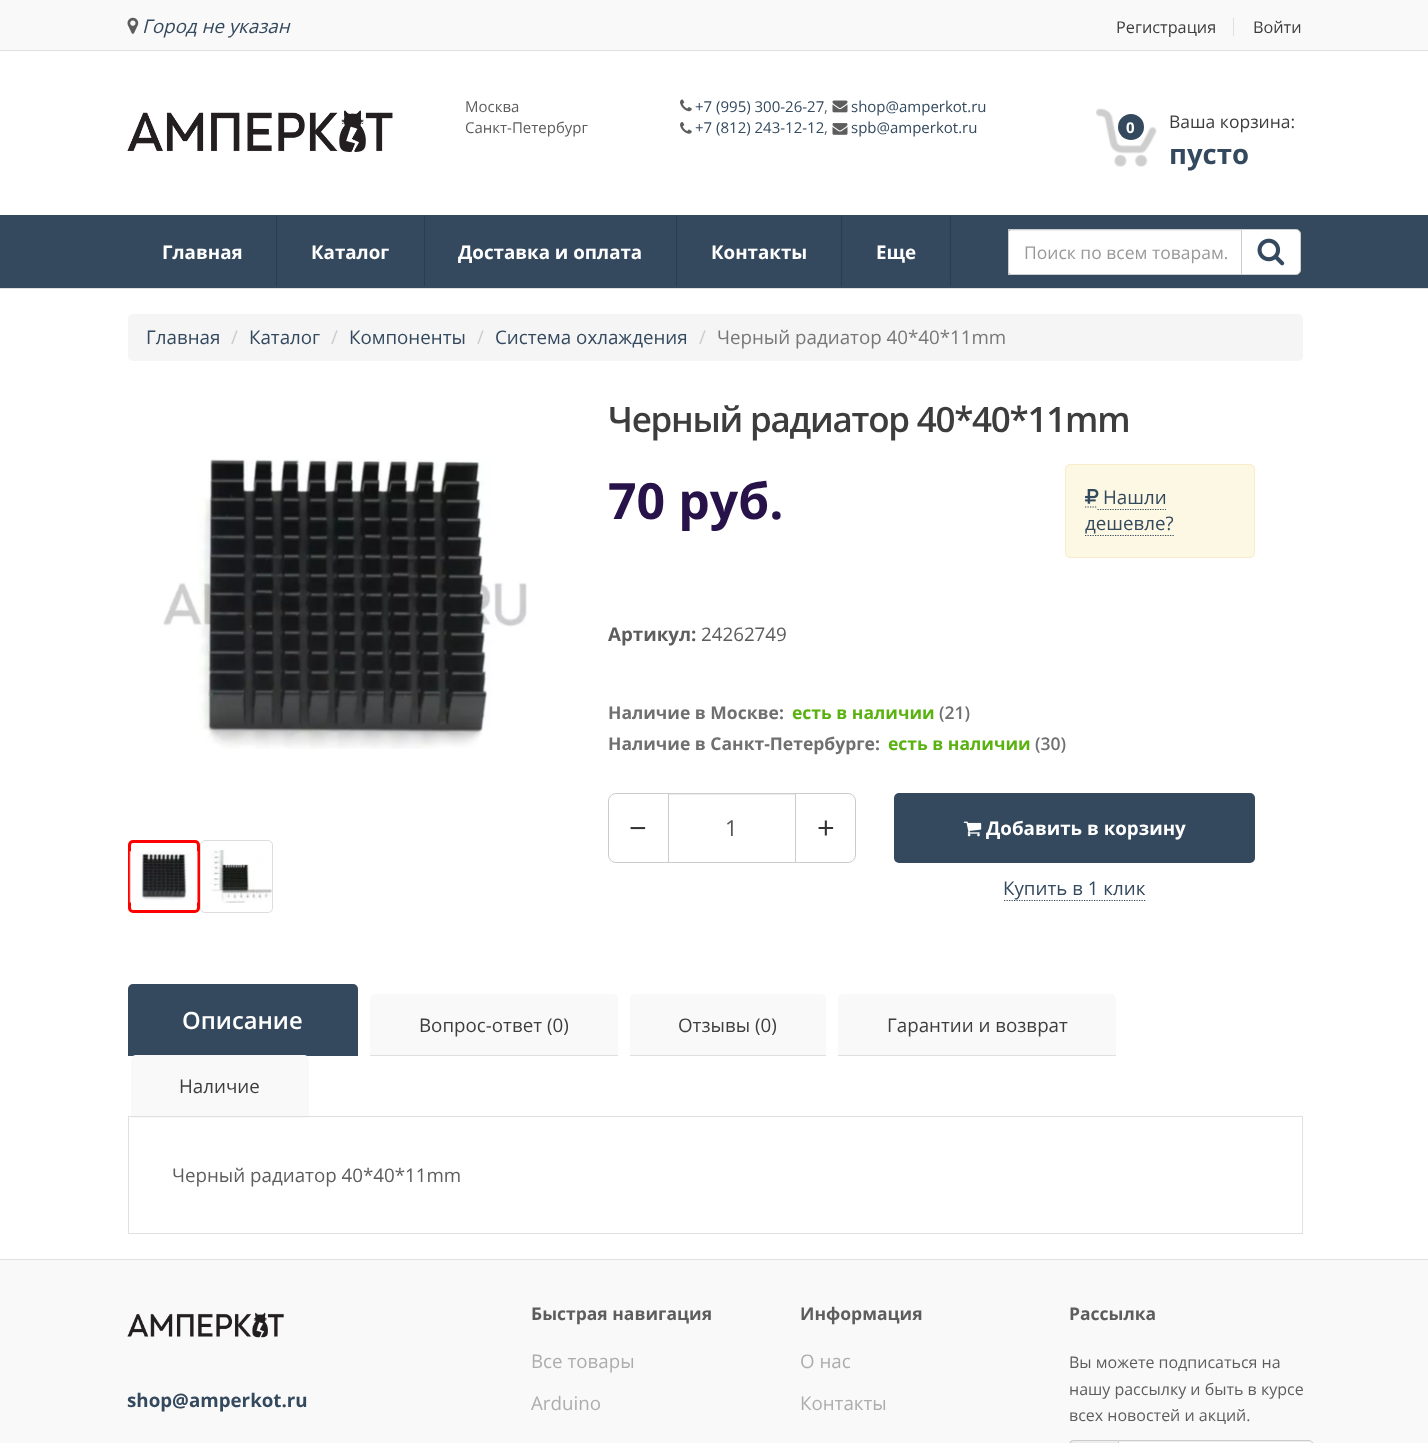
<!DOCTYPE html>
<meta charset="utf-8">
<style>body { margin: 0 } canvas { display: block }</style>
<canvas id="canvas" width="1428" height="1443"></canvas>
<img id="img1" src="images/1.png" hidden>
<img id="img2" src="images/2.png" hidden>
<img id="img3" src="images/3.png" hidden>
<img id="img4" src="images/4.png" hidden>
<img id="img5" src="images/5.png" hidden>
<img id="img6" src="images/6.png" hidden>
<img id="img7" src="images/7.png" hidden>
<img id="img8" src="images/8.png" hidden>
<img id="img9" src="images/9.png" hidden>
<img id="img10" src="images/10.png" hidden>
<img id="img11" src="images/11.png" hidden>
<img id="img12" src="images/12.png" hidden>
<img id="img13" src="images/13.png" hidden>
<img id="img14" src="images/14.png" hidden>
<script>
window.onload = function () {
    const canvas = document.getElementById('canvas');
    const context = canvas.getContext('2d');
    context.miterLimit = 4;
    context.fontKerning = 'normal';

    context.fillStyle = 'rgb(255, 255, 255)';
    context.fillRect(0, 0, 1428, 1443);
    context.fillStyle = 'rgb(249, 249, 249)';
    context.fillRect(0, 0, 1428, 50);
    context.fillStyle = 'rgb(224, 224, 224)';
    context.fillRect(0, 50, 1428, 1);
    context.drawImage(document.getElementById('img1'), 127, 17, 12, 17);
    context.fillRect(1233, 18, 1, 18);
    context.fillRect(0, 288, 1428, 1);
    context.drawImage(document.getElementById('img2'), 127, 110, 266, 42);
    context.drawImage(document.getElementById('img3'), 680, 99, 12, 13);
    context.drawImage(document.getElementById('img4'), 832, 100, 16, 13);
    context.drawImage(document.getElementById('img5'), 680, 122, 12, 12);
    context.drawImage(document.getElementById('img6'), 832, 123, 16, 12);
    context.drawImage(document.getElementById('img7'), 1096, 108, 61, 59);
    context.fillStyle = 'rgb(52, 73, 94)';
    context.beginPath();
    context.arc(1131, 127, 13, 0, 2 * Math.PI);
    context.fill();
    context.fillRect(0, 215, 1428, 73);
    context.fillStyle = 'rgb(43, 60, 78)';
    context.fillRect(276, 216, 1, 70);
    context.fillRect(424, 216, 1, 70);
    context.fillRect(676, 216, 1, 70);
    context.fillRect(841, 216, 1, 70);
    context.fillRect(950, 216, 1, 70);
    context.fillStyle = 'rgb(255, 255, 255)';
    context.beginPath();
    context.roundRect(1008, 229, 235, 46, [5, 0, 0, 5]);
    context.fill();
    context.fillStyle = 'rgba(0, 0, 0, 0.07)';
    context.fillRect(1009, 230, 232, 1);
    context.strokeStyle = 'rgb(204, 204, 204)';
    context.strokeRect(1008.5, 229.5, 234, 45);
    context.fillStyle = 'rgb(255, 255, 255)';
    context.beginPath();
    context.roundRect(1241.5, 229.5, 59, 45, [0, 4.5, 4.5, 0]);
    context.fill();
    context.stroke();
    context.drawImage(document.getElementById('img8'), 1257, 238, 28, 28);
    context.fillStyle = 'rgb(245, 245, 245)';
    context.beginPath();
    context.roundRect(128, 314, 1175, 47, 5);
    context.fill();
    context.drawImage(document.getElementById('img9'), 163, 459, 364, 290);
    context.beginPath();
    context.roundRect(129.5, 841.5, 69, 70, 3.5);
    context.strokeStyle = 'rgb(255, 0, 0)';
    context.lineWidth = 3;
    context.stroke();
    context.drawImage(document.getElementById('img10'), 129, 851, 69, 52);
    context.beginPath();
    context.roundRect(200.5, 840.5, 72, 72, 4.5);
    context.strokeStyle = 'rgb(221, 221, 221)';
    context.lineWidth = 1;
    context.stroke();
    context.drawImage(document.getElementById('img11'), 209, 850, 63, 53);
    context.fillStyle = 'rgb(252, 248, 227)';
    context.beginPath();
    context.roundRect(1065.5, 464.5, 189, 93, 4.5);
    context.fill();
    context.strokeStyle = 'rgb(250, 235, 204)';
    context.stroke();
    context.beginPath();
    context.moveTo(1085, 507);
    context.lineTo(1097.5, 507);
    context.strokeStyle = 'rgb(52, 73, 94)';
    context.lineWidth = 1.2;
    context.setLineDash([1.25, 1.25]);
    context.stroke();
    context.beginPath();
    context.moveTo(1097.5, 509.5);
    context.lineTo(1166, 509.5);
    context.stroke();
    context.beginPath();
    context.moveTo(1085, 535.5);
    context.lineTo(1174, 535.5);
    context.stroke();
    context.drawImage(document.getElementById('img12'), 1085, 489, 14, 15);
    context.beginPath();
    context.roundRect(608.5, 793.5, 60, 69, [7.5, 0, 0, 7.5]);
    context.strokeStyle = 'rgb(204, 204, 204)';
    context.lineWidth = 1;
    context.setLineDash([]);
    context.stroke();
    context.fillStyle = 'rgb(236, 236, 236)';
    context.fillRect(669, 794, 126, 1);
    context.strokeRect(668.5, 793.5, 127, 69);
    context.fillStyle = 'rgb(255, 255, 255)';
    context.beginPath();
    context.roundRect(795.5, 793.5, 60, 69, [0, 7.5, 7.5, 0]);
    context.fill();
    context.stroke();
    context.fillStyle = 'rgb(52, 73, 94)';
    context.beginPath();
    context.roundRect(894, 793, 361, 70, 5);
    context.fill();
    context.drawImage(document.getElementById('img13'), 963, 821, 19, 16);
    context.beginPath();
    context.moveTo(1004, 900.5);
    context.lineTo(1146, 900.5);
    context.strokeStyle = 'rgb(52, 73, 94)';
    context.lineWidth = 1.2;
    context.setLineDash([1.25, 1.25]);
    context.stroke();
    context.beginPath();
    context.roundRect(128, 984, 230, 72, [5, 5, 0, 0]);
    context.fill();
    context.fillStyle = 'rgb(249, 249, 249)';
    context.beginPath();
    context.roundRect(370, 994, 248, 62, [5, 5, 0, 0]);
    context.fill();
    context.fillStyle = 'rgb(224, 224, 224)';
    context.fillRect(370, 1055, 248, 1);
    context.fillStyle = 'rgb(249, 249, 249)';
    context.beginPath();
    context.roundRect(630, 994, 196, 62, [5, 5, 0, 0]);
    context.fill();
    context.fillStyle = 'rgb(224, 224, 224)';
    context.fillRect(630, 1055, 196, 1);
    context.fillStyle = 'rgb(249, 249, 249)';
    context.beginPath();
    context.roundRect(838, 994, 278, 62, [5, 5, 0, 0]);
    context.fill();
    context.fillStyle = 'rgb(224, 224, 224)';
    context.fillRect(838, 1055, 278, 1);
    context.strokeStyle = 'rgb(224, 224, 224)';
    context.lineWidth = 1;
    context.setLineDash([]);
    context.strokeRect(128.5, 1116.5, 1174, 117);
    context.fillStyle = 'rgb(249, 249, 249)';
    context.beginPath();
    context.roundRect(131, 1055, 178, 63, [5, 5, 0, 0]);
    context.fill();
    context.fillStyle = 'rgb(224, 224, 224)';
    context.fillRect(131, 1116, 178, 1);
    context.fillStyle = 'rgb(249, 249, 249)';
    context.fillRect(0, 1260, 1428, 183);
    context.fillStyle = 'rgb(224, 224, 224)';
    context.fillRect(0, 1259, 1428, 1);
    context.drawImage(document.getElementById('img14'), 127, 1312, 157, 26);
    context.fillStyle = 'rgb(238, 238, 238)';
    context.beginPath();
    context.moveTo(1074, 1440);
    context.lineTo(1118, 1440);
    context.lineTo(1118, 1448);
    context.lineTo(1074, 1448);
    context.bezierCurveTo(1071, 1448, 1069, 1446, 1069, 1443);
    context.lineTo(1069, 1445);
    context.bezierCurveTo(1069, 1442, 1071, 1440, 1074, 1440);
    context.closePath();
    context.fill();
    context.fillStyle = 'rgb(204, 204, 204)';
    context.beginPath();
    context.moveTo(1074, 1440);
    context.lineTo(1118, 1440);
    context.lineTo(1118, 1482);
    context.lineTo(1074, 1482);
    context.bezierCurveTo(1071, 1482, 1069, 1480, 1069, 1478);
    context.lineTo(1069, 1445);
    context.bezierCurveTo(1069, 1442, 1071, 1440, 1074, 1440);
    context.closePath();
    context.moveTo(1074, 1441);
    context.lineTo(1118, 1441);
    context.lineTo(1118, 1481);
    context.lineTo(1074, 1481);
    context.bezierCurveTo(1072, 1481, 1070, 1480, 1070, 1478);
    context.lineTo(1070, 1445);
    context.bezierCurveTo(1070, 1443, 1072, 1441, 1074, 1441);
    context.closePath();
    context.fill('evenodd');
    context.fillStyle = 'rgb(255, 255, 255)';
    context.beginPath();
    context.moveTo(1118, 1440);
    context.lineTo(1309, 1440);
    context.bezierCurveTo(1312, 1440, 1314, 1442, 1314, 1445);
    context.lineTo(1314, 1443);
    context.bezierCurveTo(1314, 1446, 1312, 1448, 1309, 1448);
    context.lineTo(1118, 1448);
    context.closePath();
    context.fill();
    context.fillStyle = 'rgb(236, 236, 236)';
    context.beginPath();
    context.moveTo(1119, 1442);
    context.lineTo(1309, 1442);
    context.bezierCurveTo(1311, 1442, 1312, 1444, 1312, 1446);
    context.lineTo(1312, 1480);
    context.bezierCurveTo(1313, 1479, 1313, 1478, 1313, 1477);
    context.lineTo(1313, 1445);
    context.bezierCurveTo(1313, 1443, 1311, 1441, 1309, 1441);
    context.lineTo(1119, 1441);
    context.closePath();
    context.fill();
    context.beginPath();
    context.moveTo(1118.5, 1440.5);
    context.lineTo(1309, 1440.5);
    context.bezierCurveTo(1311.5, 1440.5, 1313.5, 1442.5, 1313.5, 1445);
    context.lineTo(1313.5, 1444);
    context.bezierCurveTo(1313.5, 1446.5, 1311.5, 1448.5, 1309, 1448.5);
    context.lineTo(1118.5, 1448.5);
    context.closePath();
    context.strokeStyle = 'rgb(204, 204, 204)';
    context.stroke();
    context.font = 'italic 18.75px Open Sans';
    context.fillStyle = 'rgb(52, 73, 94)';
    context.fillText('Город не указан', 142, 33);
    context.font = '16.25px Open Sans';
    context.fillStyle = 'rgb(61, 61, 61)';
    context.fillText('Регистрация', 1116, 33);
    context.fillText('Войти', 1253, 33);
    context.font = '15px Open Sans';
    context.fillStyle = 'rgb(93, 93, 93)';
    context.fillText('Москва', 465, 112);
    context.fillStyle = 'rgb(52, 73, 94)';
    context.fillText('+7 (995) 300-26-27', 695, 112);
    context.fillStyle = 'rgb(93, 93, 93)';
    context.fillText(',', 824, 112);
    context.fillStyle = 'rgb(52, 73, 94)';
    context.fillText('shop@amperkot.ru', 851, 112);
    context.fillStyle = 'rgb(93, 93, 93)';
    context.fillText('Санкт-Петербург', 465, 133);
    context.fillStyle = 'rgb(52, 73, 94)';
    context.fillText('+7 (812) 243-12-12', 695, 133);
    context.fillStyle = 'rgb(93, 93, 93)';
    context.fillText(',', 824, 133);
    context.fillStyle = 'rgb(52, 73, 94)';
    context.fillText('spb@amperkot.ru', 851, 133);
    context.font = 'bold 15px Open Sans';
    context.fillStyle = 'rgb(255, 255, 255)';
    context.fillText('0', 1126, 133);
    context.font = '17.5px Open Sans';
    context.fillStyle = 'rgb(61, 61, 61)';
    context.fillText('Ваша корзина:', 1169, 128);
    context.font = 'bold 27.5px Open Sans';
    context.fillStyle = 'rgb(52, 73, 94)';
    context.fillText('пусто', 1169, 164);
    context.font = 'bold 18.75px Open Sans';
    context.fillStyle = 'rgb(255, 255, 255)';
    context.fillText('Главная', 162, 259);
    context.fillText('Каталог', 311, 259);
    context.fillText('Доставка и оплата', 458, 259);
    context.fillText('Контакты', 711, 259);
    context.fillText('Еще', 876, 259);
    context.font = '17.5px Open Sans';
    context.fillStyle = 'rgb(153, 153, 153)';
    context.fillText('Поиск по всем товарам.', 1024, 259);
    context.font = '18.75px Open Sans';
    context.fillStyle = 'rgb(52, 73, 94)';
    context.fillText('Главная', 146, 344);
    context.fillStyle = 'rgb(204, 204, 204)';
    context.fillText('/', 231, 344);
    context.fillStyle = 'rgb(52, 73, 94)';
    context.fillText('Каталог', 249, 344);
    context.fillStyle = 'rgb(204, 204, 204)';
    context.fillText('/', 331, 344);
    context.fillStyle = 'rgb(52, 73, 94)';
    context.fillText('Компоненты', 349, 344);
    context.fillStyle = 'rgb(204, 204, 204)';
    context.fillText('/', 477, 344);
    context.fillStyle = 'rgb(52, 73, 94)';
    context.fillText('Система охлаждения', 495, 344);
    context.fillStyle = 'rgb(204, 204, 204)';
    context.fillText('/', 699, 344);
    context.fillStyle = 'rgb(119, 119, 119)';
    context.fillText('Черный радиатор 40*40*11mm', 717, 344);
    context.letterSpacing = '-1.25px';
    context.font = '600 35px Open Sans';
    context.fillStyle = 'rgb(61, 61, 61)';
    context.fillText('Черный радиатор 40*40*11mm', 608, 432);
    context.letterSpacing = '0px';
    context.font = 'bold 50px Open Sans';
    context.fillStyle = 'rgb(40, 18, 74)';
    context.fillText('70 руб.', 608, 519);
    context.font = '18.75px Open Sans';
    context.fillStyle = 'rgb(52, 73, 94)';
    context.fillText('Нашли', 1103, 504);
    context.fillText('дешевле?', 1085, 530);
    context.font = 'bold 18.75px Open Sans';
    context.fillStyle = 'rgb(93, 93, 93)';
    context.fillText('Артикул:', 608, 641);
    context.font = '18.75px Open Sans';
    context.fillText('24262749', 701, 641);
    context.font = 'bold 17.5px Open Sans';
    context.fillStyle = 'rgb(112, 112, 112)';
    context.fillText('Наличие в Москве:', 608, 719);
    context.fillStyle = 'rgb(89, 178, 16)';
    context.fillText('есть в наличии', 792, 719);
    context.font = '600 17.5px Open Sans';
    context.fillStyle = 'rgb(112, 112, 112)';
    context.fillText('(21)', 939, 719);
    context.font = 'bold 17.5px Open Sans';
    context.fillText('Наличие в Санкт-Петербурге:', 608, 750);
    context.fillStyle = 'rgb(89, 178, 16)';
    context.fillText('есть в наличии', 888, 750);
    context.font = '600 17.5px Open Sans';
    context.fillStyle = 'rgb(112, 112, 112)';
    context.fillText('(30)', 1035, 750);
    context.font = '31px Open Sans';
    context.fillStyle = 'rgb(51, 51, 51)';
    context.fillText('−', 629, 839);
    context.font = '22px Open Sans';
    context.fillStyle = 'rgb(85, 85, 85)';
    context.fillText('1', 725, 836);
    context.font = '31px Open Sans';
    context.fillStyle = 'rgb(51, 51, 51)';
    context.fillText('+', 817, 839);
    context.font = 'bold 18.75px Open Sans';
    context.fillStyle = 'rgb(255, 255, 255)';
    context.fillText('Добавить в корзину', 986, 835);
    context.font = '18.75px Open Sans';
    context.fillStyle = 'rgb(52, 73, 94)';
    context.fillText('Купить в 1 клик', 1003, 895);
    context.font = '600 23.75px Open Sans';
    context.fillStyle = 'rgb(255, 255, 255)';
    context.fillText('Описание', 182, 1029);
    context.font = '18.75px Open Sans';
    context.fillStyle = 'rgb(61, 61, 61)';
    context.fillText('Вопрос-ответ (0)', 419, 1032);
    context.fillText('Отзывы (0)', 678, 1032);
    context.fillText('Гарантии и возврат', 887, 1032);
    context.fillText('Наличие', 179, 1093);
    context.fillStyle = 'rgb(93, 93, 93)';
    context.fillText('Черный радиатор 40*40*11mm', 172, 1182);
    context.font = 'bold 18.75px Open Sans';
    context.fillStyle = 'rgb(52, 73, 94)';
    context.fillText('shop@amperkot.ru', 127, 1407);
    context.font = 'bold 17.5px Open Sans';
    context.fillStyle = 'rgb(93, 93, 93)';
    context.fillText('Быстрая навигация', 531, 1320);
    context.font = '18.75px Open Sans';
    context.fillStyle = 'rgb(173, 173, 173)';
    context.fillText('Все товары', 531, 1368);
    context.fillText('Arduino', 531, 1410);
    context.font = 'bold 17.5px Open Sans';
    context.fillStyle = 'rgb(93, 93, 93)';
    context.fillText('Информация', 800, 1320);
    context.font = '18.75px Open Sans';
    context.fillStyle = 'rgb(173, 173, 173)';
    context.fillText('О нас', 800, 1368);
    context.fillText('Контакты', 800, 1410);
    context.font = 'bold 17.5px Open Sans';
    context.fillStyle = 'rgb(93, 93, 93)';
    context.fillText('Рассылка', 1069, 1320);
    context.font = '16px Open Sans';
    context.fillText('Вы можете подписаться на', 1069, 1368);
    context.fillText('нашу рассылку и быть в курсе', 1069, 1395);
    context.fillText('всех новостей и акций.', 1069, 1421);
};
</script>
